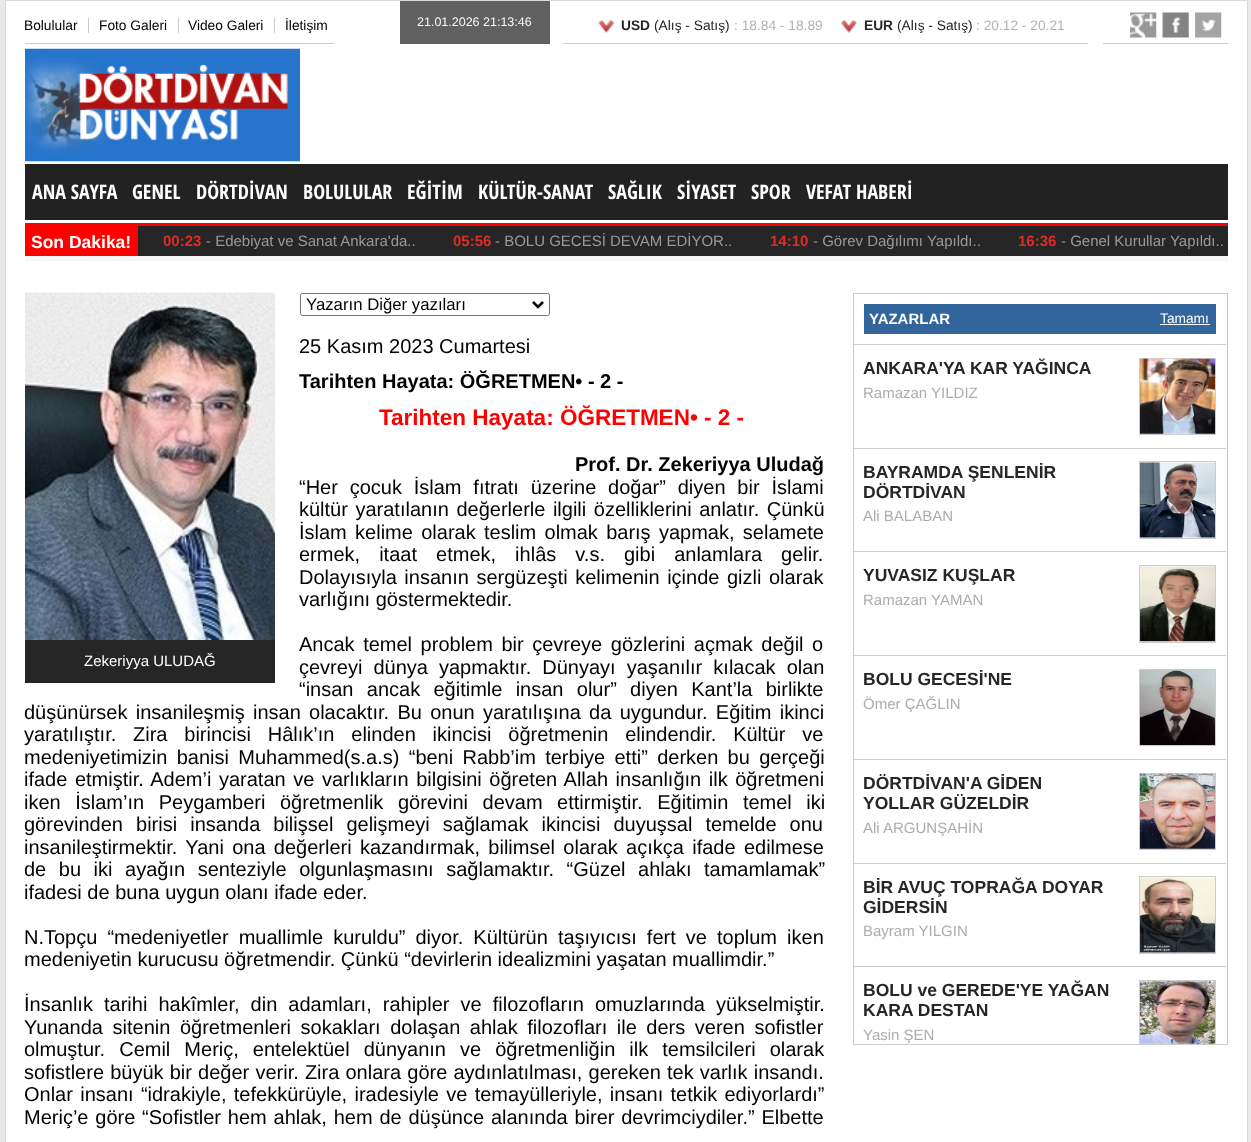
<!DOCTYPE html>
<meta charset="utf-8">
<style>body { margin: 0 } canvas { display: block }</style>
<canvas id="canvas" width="1251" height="1142"></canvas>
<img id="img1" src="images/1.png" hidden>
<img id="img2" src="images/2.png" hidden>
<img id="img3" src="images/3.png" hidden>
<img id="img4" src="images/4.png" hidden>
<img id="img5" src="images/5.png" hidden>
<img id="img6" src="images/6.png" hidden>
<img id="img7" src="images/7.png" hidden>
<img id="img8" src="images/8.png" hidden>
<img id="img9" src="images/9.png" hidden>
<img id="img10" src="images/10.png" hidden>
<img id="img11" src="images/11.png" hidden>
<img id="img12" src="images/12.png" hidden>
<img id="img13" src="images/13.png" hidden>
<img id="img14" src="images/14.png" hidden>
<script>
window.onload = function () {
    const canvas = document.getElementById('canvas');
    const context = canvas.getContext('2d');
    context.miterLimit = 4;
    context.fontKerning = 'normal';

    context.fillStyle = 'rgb(233, 233, 233)';
    context.fillRect(0, 0, 1251, 1142);
    context.fillStyle = 'rgb(255, 255, 255)';
    context.beginPath();
    context.rect(5.5, 0.5, 1242, 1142);
    context.fill();
    context.strokeStyle = 'rgb(218, 218, 218)';
    context.stroke();
    context.fillStyle = 'rgb(204, 204, 204)';
    context.fillRect(25, 43, 309, 1);
    context.fillRect(88, 18, 1, 15);
    context.fillRect(178, 18, 1, 15);
    context.fillRect(274, 18, 1, 15);
    context.fillStyle = 'rgb(96, 96, 96)';
    context.fillRect(400, 1, 150, 43);
    context.fillStyle = 'rgb(204, 204, 204)';
    context.fillRect(563, 43, 525, 1);
    context.drawImage(document.getElementById('img1'), 598, 19, 17, 14);
    context.drawImage(document.getElementById('img2'), 841, 19, 16, 14);
    context.fillRect(1103, 43, 125, 1);
    context.drawImage(document.getElementById('img3'), 1130, 12, 27, 26);
    context.drawImage(document.getElementById('img4'), 1162, 12, 27, 26);
    context.drawImage(document.getElementById('img5'), 1195, 12, 27, 26);
    context.drawImage(document.getElementById('img6'), 25, 48, 275, 114);
    context.fillStyle = 'rgb(34, 34, 34)';
    context.fillRect(25, 164, 1203, 56);
    context.fillStyle = 'rgb(247, 247, 247)';
    context.fillRect(25, 256, 1203, 5);
    context.fillStyle = 'rgb(255, 0, 0)';
    context.fillRect(25, 223, 1203, 3);
    context.fillStyle = 'rgb(38, 38, 38)';
    context.fillRect(138, 226, 1090, 30);
    context.fillStyle = 'rgb(255, 0, 0)';
    context.fillRect(25, 226, 113, 30);
    context.beginPath();
    context.roundRect(300.5, 293.5, 249, 22, 2);
    context.strokeStyle = 'rgb(118, 118, 118)';
    context.stroke();
    context.beginPath();
    context.moveTo(533, 302);
    context.lineTo(538, 307);
    context.lineTo(543, 302);
    context.strokeStyle = 'rgb(0, 0, 0)';
    context.lineWidth = 2.5;
    context.stroke();
    context.drawImage(document.getElementById('img7'), 25, 292, 250, 348);
    context.fillStyle = 'rgb(38, 38, 38)';
    context.fillRect(25, 640, 250, 43);
    context.strokeStyle = 'rgb(204, 204, 204)';
    context.lineWidth = 1;
    context.strokeRect(853.5, 293.5, 374, 751);
    context.fillStyle = 'rgb(49, 101, 156)';
    context.fillRect(864, 304, 352, 30);
    context.fillStyle = 'rgb(255, 255, 255)';
    context.fillRect(1160, 324, 50, 1);
    context.fillStyle = 'rgb(206, 206, 206)';
    context.fillRect(854, 344, 372, 1);
    context.strokeRect(1139.5, 358.5, 76, 76);
    context.drawImage(document.getElementById('img8'), 1140, 358, 75, 76);
    context.fillRect(854, 448, 372, 1);
    context.strokeRect(1139.5, 461.5, 76, 77);
    context.drawImage(document.getElementById('img9'), 1140, 462, 75, 76);
    context.fillRect(854, 551, 372, 1);
    context.strokeRect(1139.5, 565.5, 76, 77);
    context.drawImage(document.getElementById('img10'), 1140, 566, 75, 76);
    context.fillRect(854, 655, 372, 1);
    context.strokeRect(1139.5, 669.5, 76, 76);
    context.drawImage(document.getElementById('img11'), 1140, 670, 75, 75);
    context.fillRect(854, 759, 372, 1);
    context.strokeRect(1139.5, 773.5, 76, 76);
    context.drawImage(document.getElementById('img12'), 1140, 773, 75, 76);
    context.fillRect(854, 863, 372, 1);
    context.strokeRect(1139.5, 876.5, 76, 77);
    context.drawImage(document.getElementById('img13'), 1140, 877, 75, 76);
    context.fillRect(854, 966, 372, 1);
    context.save();
    context.beginPath();
    context.rect(854, 294, 372, 750);
    context.clip();
    context.strokeRect(1139.5, 980.5, 76, 77);
    context.restore();
    context.drawImage(document.getElementById('img14'), 1140, 981, 75, 63);
    context.font = '13.75px Liberation Sans';
    context.fillStyle = 'rgb(0, 0, 0)';
    context.fillText('Bolulular', 24, 30);
    context.fillText('Foto Galeri', 99, 30);
    context.fillText('Video Galeri', 188, 30);
    context.fillText('İletişim', 285, 30);
    context.font = '12.5px Liberation Sans';
    context.fillStyle = 'rgb(248, 248, 248)';
    context.fillText('21.01.2026 21:13:46', 417, 26);
    context.font = 'bold 13.75px Liberation Sans';
    context.fillStyle = 'rgb(38, 38, 38)';
    context.fillText('USD', 621, 30);
    context.font = '13.75px Liberation Sans';
    context.fillText('(Alış - Satış)', 654, 30);
    context.fillStyle = 'rgb(179, 179, 179)';
    context.fillText(': 18.84 - 18.89', 734, 30);
    context.font = 'bold 13.75px Liberation Sans';
    context.fillStyle = 'rgb(38, 38, 38)';
    context.fillText('EUR', 864, 30);
    context.font = '13.75px Liberation Sans';
    context.fillText('(Alış - Satış)', 897, 30);
    context.fillStyle = 'rgb(179, 179, 179)';
    context.fillText(': 20.12 - 20.21', 976, 30);
    context.font = 'bold 20px Open Sans Condensed';
    context.fillStyle = 'rgb(255, 255, 255)';
    context.fillText('ANA SAYFA', 32, 199);
    context.fillText('GENEL', 132, 199);
    context.fillText('DÖRTDİVAN', 196, 199);
    context.fillText('BOLULULAR', 303, 199);
    context.fillText('EĞİTİM', 407, 199);
    context.fillText('KÜLTÜR-SANAT', 478, 199);
    context.fillText('SAĞLIK', 608, 199);
    context.fillText('SİYASET', 677, 199);
    context.fillText('SPOR', 751, 199);
    context.fillText('VEFAT HABERİ', 806, 199);
    context.font = 'bold 17.5px Liberation Sans';
    context.fillText('Son Dakika!', 31, 248);
    context.font = 'bold 15px Liberation Sans';
    context.fillStyle = 'rgb(222, 44, 36)';
    context.fillText('00:23', 163, 246);
    context.font = '15px Liberation Sans';
    context.fillStyle = 'rgb(153, 153, 153)';
    context.fillText('- Edebiyat ve Sanat Ankara\'da..', 206, 246);
    context.font = 'bold 15px Liberation Sans';
    context.fillStyle = 'rgb(222, 44, 36)';
    context.fillText('05:56', 453, 246);
    context.font = '15px Liberation Sans';
    context.fillStyle = 'rgb(153, 153, 153)';
    context.fillText('- BOLU GECESİ DEVAM EDİYOR..', 495, 246);
    context.font = 'bold 15px Liberation Sans';
    context.fillStyle = 'rgb(222, 44, 36)';
    context.fillText('14:10', 770, 246);
    context.font = '15px Liberation Sans';
    context.fillStyle = 'rgb(153, 153, 153)';
    context.fillText('- Görev Dağılımı Yapıldı..', 813, 246);
    context.font = 'bold 15px Liberation Sans';
    context.fillStyle = 'rgb(222, 44, 36)';
    context.fillText('16:36', 1018, 246);
    context.font = '15px Liberation Sans';
    context.fillStyle = 'rgb(153, 153, 153)';
    context.fillText('- Genel Kurullar Yapıldı..', 1061, 246);
    context.font = '16.75px Liberation Sans';
    context.fillStyle = 'rgb(0, 0, 0)';
    context.fillText('Yazarın Diğer yazıları', 306, 310);
    context.font = '20px Liberation Sans';
    context.fillText('25 Kasım 2023 Cumartesi', 299, 353);
    context.font = 'bold 20px Liberation Sans';
    context.fillText('Tarihten Hayata: ÖĞRETMEN• - 2 -', 299, 388);
    context.font = 'bold 22.5px Liberation Sans';
    context.fillStyle = 'rgb(255, 0, 0)';
    context.fillText('Tarihten Hayata: ÖĞRETMEN• - 2 -', 379, 425);
    context.font = 'bold 20px Liberation Sans';
    context.fillStyle = 'rgb(0, 0, 0)';
    context.fillText('Prof. Dr. Zekeriyya Uludağ', 575, 471);
    context.wordSpacing = '6.25px';
    context.font = '20px Liberation Sans';
    context.fillText('“Her çocuk İslam fıtratı üzerine doğar” diyen bir İslami', 299, 494);
    context.wordSpacing = '2px';
    context.fillText('kültür yaratılanın değerlerle ilgili özelliklerini anlatır. Çünkü', 299, 516);
    context.wordSpacing = '2.75px';
    context.fillText('İslam kelime olarak teslim olmak barış yapmak, selamete', 299, 539);
    context.wordSpacing = '13.5px';
    context.fillText('ermek, itaat etmek, ihlâs v.s. gibi anlamlara gelir.', 299, 561);
    context.wordSpacing = '2px';
    context.fillText('Dolayısıyla insanın sergüzeşti kelimenin içinde gizli olarak', 299, 584);
    context.wordSpacing = '0px';
    context.fillText('varlığını göstermektedir.', 299, 606);
    context.wordSpacing = '3px';
    context.fillText('Ancak temel problem bir çevreye gözlerini açmak değil o', 299, 651);
    context.wordSpacing = '5.5px';
    context.fillText('çevreyi dünya yapmaktır. Dünyayı yaşanılır kılacak olan', 299, 674);
    context.wordSpacing = '7.75px';
    context.fillText('“insan ancak eğitimle insan olur” diyen Kant’la birlikte', 299, 696);
    context.wordSpacing = '2.75px';
    context.fillText('düşünürsek insanileşmiş insan olacaktır. Bu onun yaratılışına da uygundur. Eğitim ikinci', 24, 719);
    context.wordSpacing = '11.25px';
    context.fillText('yaratılıştır. Zira birincisi Hâlık’ın elinden ikincisi öğretmenin elindendir. Kültür ve', 24, 741);
    context.wordSpacing = '3.75px';
    context.fillText('medeniyetimizin banisi Muhammed(s.a.s) “beni Rabb’im terbiye etti” derken bu gerçeği', 24, 764);
    context.wordSpacing = '2px';
    context.fillText('ifade etmiştir. Adem’i yaratan ve varlıkların bilgisini öğreten Allah insanlığın ilk öğretmeni', 24, 786);
    context.wordSpacing = '9px';
    context.fillText('iken İslam’ın Peygamberi öğretmenlik görevini devam ettirmiştir. Eğitimin temel iki', 24, 809);
    context.wordSpacing = '7.5px';
    context.fillText('görevinden birisi insanda bilişsel gelişmeyi sağlamak ikincisi duyuşsal temelde onu', 24, 831);
    context.wordSpacing = '2.75px';
    context.fillText('insanileştirmektir. Yani ona değerleri kazandırmak, bilimsel olarak açıkça ifade edilmese', 24, 854);
    context.wordSpacing = '7px';
    context.fillText('de bu iki ayağın senteziyle olgunlaşmasını sağlamaktır. “Güzel ahlakı tamamlamak”', 24, 876);
    context.wordSpacing = '0px';
    context.fillText('ifadesi de buna uygun olanı ifade eder.', 24, 899);
    context.wordSpacing = '4.5px';
    context.fillText('N.Topçu “medeniyetler muallimle kuruldu” diyor. Kültürün taşıyıcısı fert ve toplum iken', 24, 944);
    context.wordSpacing = '0px';
    context.fillText('medeniyetin kurucusu öğretmendir. Çünkü “devirlerin idealizmini yaşatan muallimdir.”', 24, 966);
    context.wordSpacing = '5.5px';
    context.fillText('İnsanlık tarihi hakîmler, din adamları, rahipler ve filozofların omuzlarında yükselmiştir.', 24, 1011);
    context.wordSpacing = '4px';
    context.fillText('Yunanda sitenin öğretmenleri sokakları dolaşan ahlak filozofları ile ders veren sofistler', 24, 1034);
    context.wordSpacing = '8.5px';
    context.fillText('olmuştur. Cemil Meriç, entelektüel dünyanın ve öğretmenliğin ilk temsilcileri olarak', 24, 1056);
    context.wordSpacing = '0.6px';
    context.fillText('sofistlere büyük bir değer verir. Zira onlara göre aydınlatılması, gereken tek varlık insandı.', 24, 1079);
    context.wordSpacing = '1.75px';
    context.fillText('Onlar insanı “idrakiyle, tefekkürüyle, iradesiyle ve temayülleriyle, insanı tetkik ediyorlardı”', 24, 1101);
    context.wordSpacing = '1.25px';
    context.fillText('Meriç’e göre “Sofistler hem ahlak, hem de düşünce alanında birer devrimciydiler.” Elbette', 24, 1124);
    context.wordSpacing = '0px';
    context.font = '15px Liberation Sans';
    context.fillStyle = 'rgb(255, 255, 255)';
    context.fillText('Zekeriyya ULUDAĞ', 84, 666);
    context.font = 'bold 15px Liberation Sans';
    context.fillText('YAZARLAR', 869, 324);
    context.font = '13.75px Liberation Sans';
    context.fillText('Tamamı', 1160, 323);
    context.font = 'bold 17.5px Liberation Sans';
    context.fillStyle = 'rgb(38, 38, 38)';
    context.fillText('ANKARA\'YA KAR YAĞINCA', 863, 374);
    context.font = '15px Liberation Sans';
    context.fillStyle = 'rgb(172, 172, 172)';
    context.fillText('Ramazan YILDIZ', 863, 398);
    context.font = 'bold 17.5px Liberation Sans';
    context.fillStyle = 'rgb(38, 38, 38)';
    context.fillText('BAYRAMDA ŞENLENİR', 863, 478);
    context.fillText('DÖRTDİVAN', 863, 498);
    context.font = '15px Liberation Sans';
    context.fillStyle = 'rgb(172, 172, 172)';
    context.fillText('Ali BALABAN', 863, 521);
    context.font = 'bold 17.5px Liberation Sans';
    context.fillStyle = 'rgb(38, 38, 38)';
    context.fillText('YUVASIZ KUŞLAR', 863, 581);
    context.font = '15px Liberation Sans';
    context.fillStyle = 'rgb(172, 172, 172)';
    context.fillText('Ramazan YAMAN', 863, 605);
    context.font = 'bold 17.5px Liberation Sans';
    context.fillStyle = 'rgb(38, 38, 38)';
    context.fillText('BOLU GECESİ\'NE', 863, 685);
    context.font = '15px Liberation Sans';
    context.fillStyle = 'rgb(172, 172, 172)';
    context.fillText('Ömer ÇAĞLIN', 863, 709);
    context.font = 'bold 17.5px Liberation Sans';
    context.fillStyle = 'rgb(38, 38, 38)';
    context.fillText('DÖRTDİVAN\'A GİDEN', 863, 789);
    context.fillText('YOLLAR GÜZELDİR', 863, 809);
    context.font = '15px Liberation Sans';
    context.fillStyle = 'rgb(172, 172, 172)';
    context.fillText('Ali ARGUNŞAHİN', 863, 833);
    context.font = 'bold 17.5px Liberation Sans';
    context.fillStyle = 'rgb(38, 38, 38)';
    context.fillText('BİR AVUÇ TOPRAĞA DOYAR', 863, 893);
    context.fillText('GİDERSİN', 863, 913);
    context.font = '15px Liberation Sans';
    context.fillStyle = 'rgb(172, 172, 172)';
    context.fillText('Bayram YILGIN', 863, 936);
    context.font = 'bold 17.5px Liberation Sans';
    context.fillStyle = 'rgb(38, 38, 38)';
    context.fillText('BOLU ve GEREDE\'YE YAĞAN', 863, 996);
    context.fillText('KARA DESTAN', 863, 1016);
    context.font = '15px Liberation Sans';
    context.fillStyle = 'rgb(172, 172, 172)';
    context.fillText('Yasin ŞEN', 863, 1040);
};
</script>
